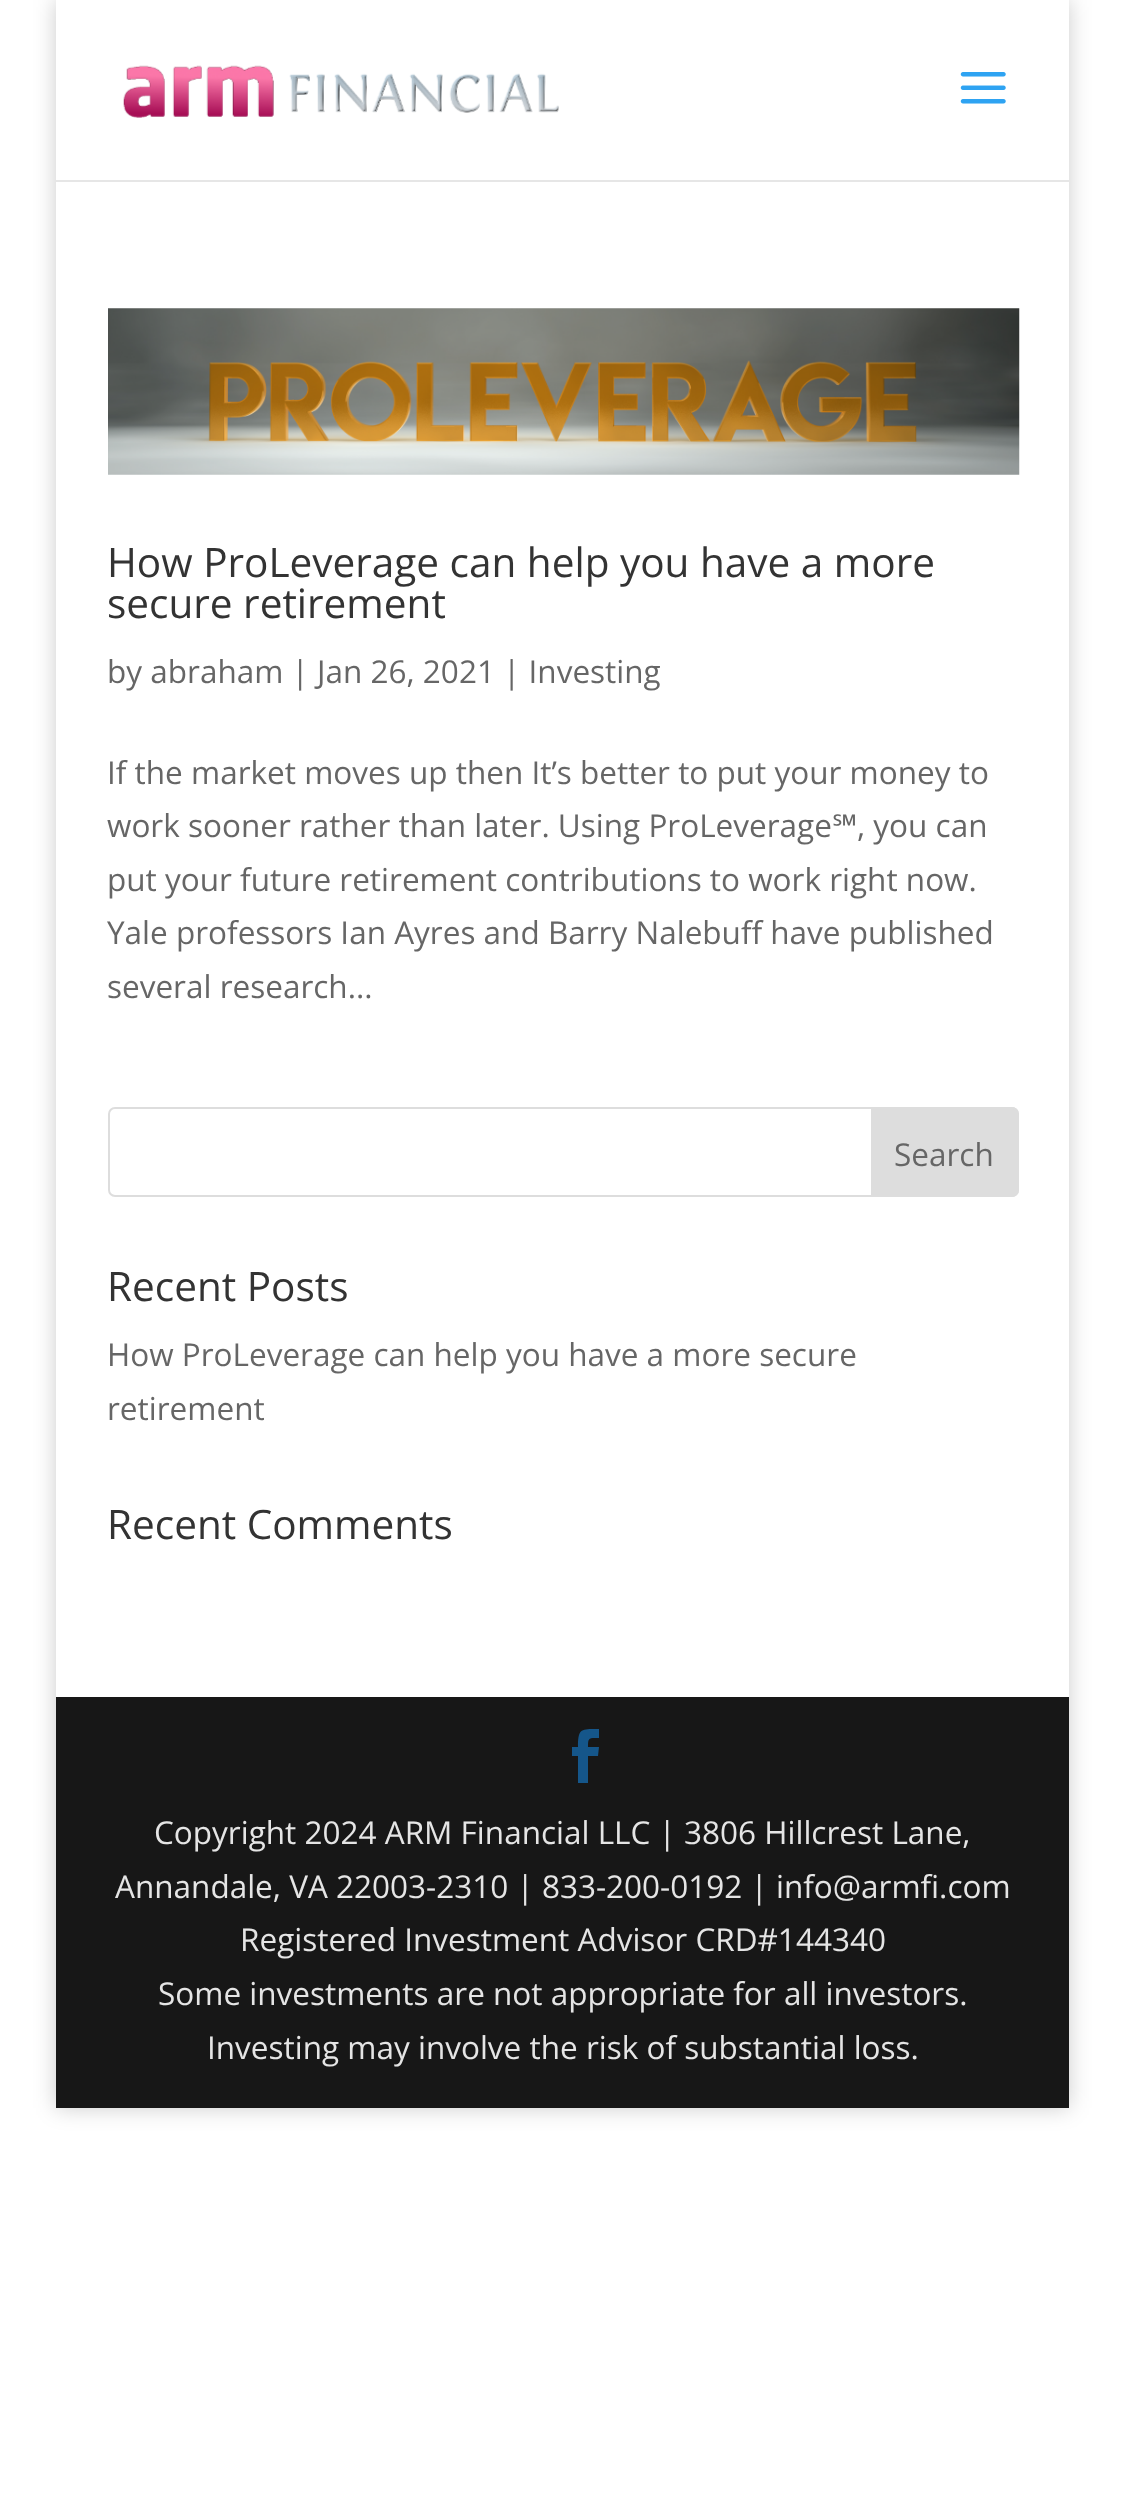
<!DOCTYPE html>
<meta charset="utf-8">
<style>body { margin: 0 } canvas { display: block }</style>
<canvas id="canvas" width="1125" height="2507"></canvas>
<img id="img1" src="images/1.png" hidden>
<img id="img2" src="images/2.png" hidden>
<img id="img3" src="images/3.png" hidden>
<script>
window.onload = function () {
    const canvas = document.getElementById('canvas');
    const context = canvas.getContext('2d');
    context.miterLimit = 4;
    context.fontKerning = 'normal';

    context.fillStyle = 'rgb(255, 255, 255)';
    context.fillRect(0, 0, 1125, 2507);
    context.fillStyle = 'rgba(0, 0, 0, 0.2)';
    context.filter = 'blur(11px)';
    context.beginPath();
    context.rect(56, 0, 1013, 2108);
    context.fill();
    context.filter = 'none';
    context.fillStyle = 'rgb(230, 230, 230)';
    context.beginPath();
    context.moveTo(56, 2);
    context.lineTo(56, 182);
    context.lineTo(1069, 182);
    context.lineTo(1069, 2);
    context.lineTo(1069, 180);
    context.lineTo(56, 180);
    context.closePath();
    context.fill();
    context.fillStyle = 'rgb(255, 255, 255)';
    context.fillRect(56, 0, 1013, 180);
    context.drawImage(document.getElementById('img1'), 123, 65, 436, 53);
    context.drawImage(document.getElementById('img2'), 960, 72, 46, 32);
    context.fillRect(56, 182, 1013, 1515);
    context.drawImage(document.getElementById('img3'), 108, 308, 912, 167);
    context.beginPath();
    context.roundRect(109, 1108, 909, 88, 6);
    context.strokeStyle = 'rgb(221, 221, 221)';
    context.lineWidth = 2;
    context.stroke();
    context.fillStyle = 'rgb(221, 221, 221)';
    context.beginPath();
    context.roundRect(872, 1108, 146, 88, [0, 6, 6, 0]);
    context.fill();
    context.stroke();
    context.fillStyle = 'rgb(23, 23, 23)';
    context.fillRect(56, 1697, 1013, 411);
    context.fillStyle = 'rgb(21, 86, 138)';
    context.beginPath();
    context.moveTo(578, 1783);
    context.lineTo(588, 1783);
    context.lineTo(588, 1756);
    context.lineTo(598, 1756);
    context.lineTo(599, 1747);
    context.lineTo(588, 1747);
    context.bezierCurveTo(588, 1737, 589, 1738, 599, 1738);
    context.lineTo(599, 1729);
    context.bezierCurveTo(581, 1729, 578, 1728, 578, 1747);
    context.lineTo(572, 1747);
    context.lineTo(572, 1756);
    context.lineTo(578, 1756);
    context.closePath();
    context.fill();
    context.font = '40.5px Open Sans';
    context.fillStyle = 'rgb(51, 51, 51)';
    context.fillText('How ProLeverage can help you have a more', 107, 577);
    context.fillText('secure retirement', 107, 618);
    context.font = '31.5px Open Sans';
    context.fillStyle = 'rgb(102, 102, 102)';
    context.fillText('by abraham | Jan 26, 2021 | Investing', 107, 683);
    context.fillText('If the market moves up then It’s better to put your money to', 107, 784);
    context.fillText('work sooner rather than later. Using ProLeverage', 107, 837);
    context.font = '500 31.5px Noto Sans';
    context.fillText('℠', 832, 837);
    context.font = '31.5px Open Sans';
    context.fillText(', you can', 857, 837);
    context.fillText('put your future retirement contributions to work right now.', 107, 891);
    context.fillText('Yale professors Ian Ayres and Barry Nalebuff have published', 107, 944);
    context.fillText('several research...', 107, 998);
    context.fillText('Search', 894, 1166);
    context.font = '40.5px Open Sans';
    context.fillStyle = 'rgb(51, 51, 51)';
    context.fillText('Recent Posts', 107, 1301);
    context.font = '31.5px Open Sans';
    context.fillStyle = 'rgb(102, 102, 102)';
    context.fillText('How ProLeverage can help you have a more secure', 107, 1366);
    context.fillText('retirement', 107, 1420);
    context.font = '40.5px Open Sans';
    context.fillStyle = 'rgb(51, 51, 51)';
    context.fillText('Recent Comments', 107, 1539);
    context.font = '31.5px Open Sans';
    context.fillStyle = 'rgb(229, 229, 229)';
    context.fillText('Copyright 2024 ARM Financial LLC | 3806 Hillcrest Lane,', 154, 1844);
    context.fillText('Annandale, VA 22003-2310 | 833-200-0192 | info@armfi.com', 115, 1898);
    context.fillText('Registered Investment Advisor CRD#144340', 240, 1951);
    context.fillText('Some investments are not appropriate for all investors.', 158, 2005);
    context.fillText('Investing may involve the risk of substantial loss.', 207, 2059);
};
</script>
